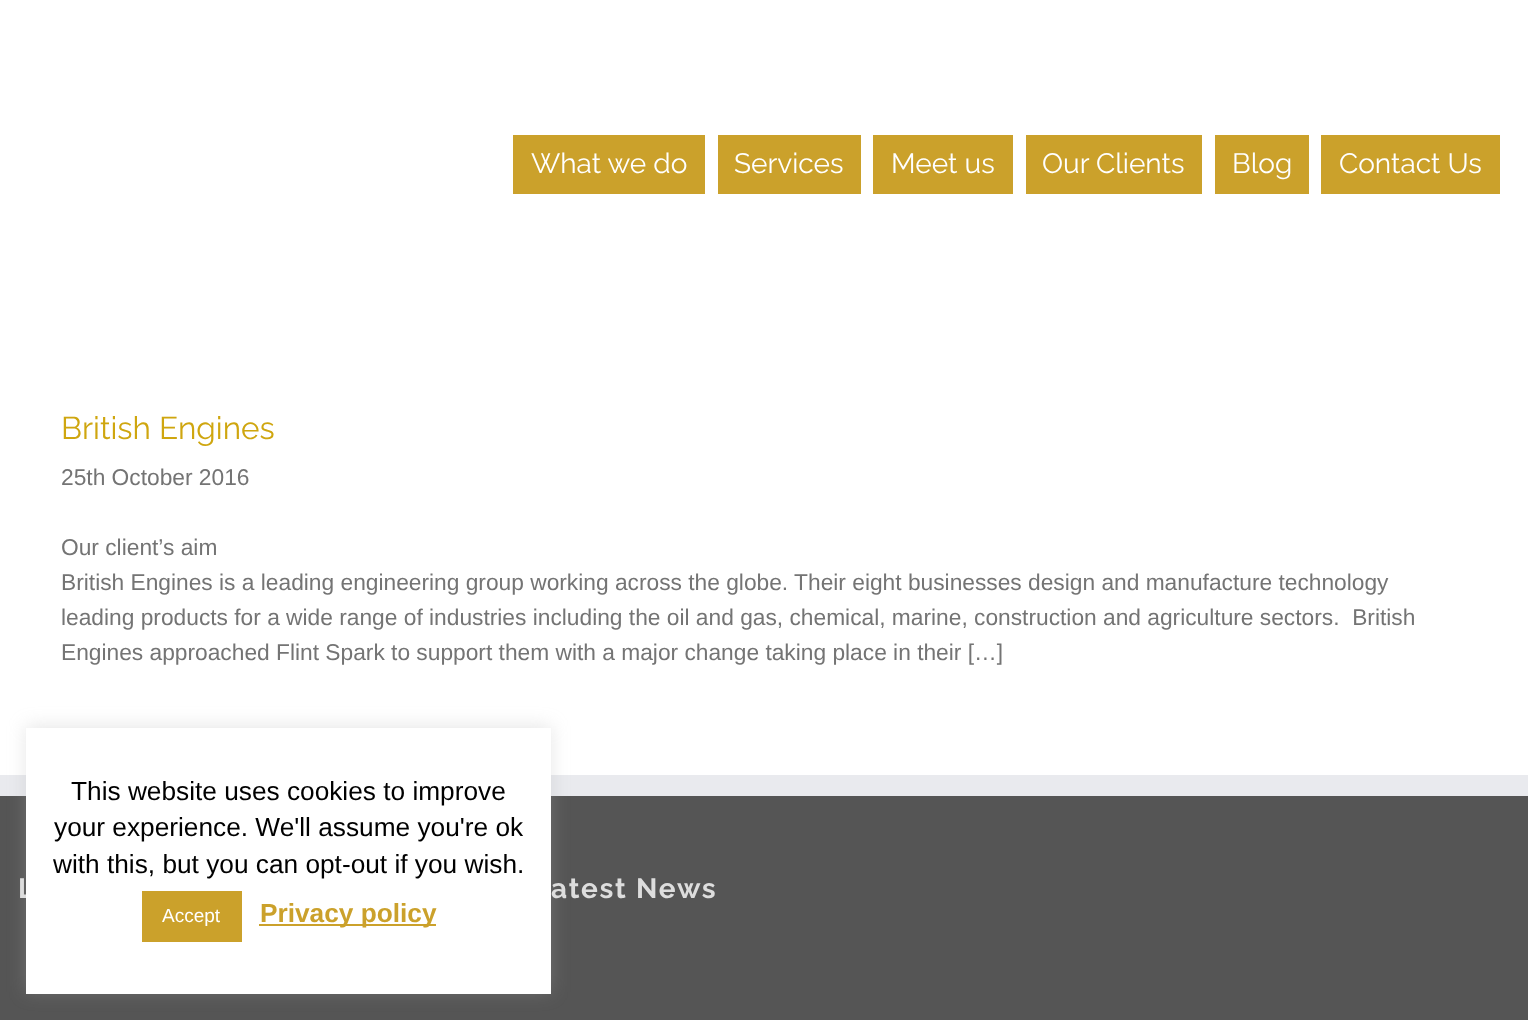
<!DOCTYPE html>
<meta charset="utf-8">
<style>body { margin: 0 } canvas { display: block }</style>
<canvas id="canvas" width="1528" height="1020"></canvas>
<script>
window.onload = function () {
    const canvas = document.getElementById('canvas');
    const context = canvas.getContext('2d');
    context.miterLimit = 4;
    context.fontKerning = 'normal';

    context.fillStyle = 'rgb(255, 255, 255)';
    context.fillRect(0, 0, 1528, 1020);
    context.fillStyle = 'rgb(203, 161, 43)';
    context.fillRect(513, 135, 192, 59);
    context.fillRect(718, 135, 143, 59);
    context.fillRect(873, 135, 140, 59);
    context.fillRect(1026, 135, 176, 59);
    context.fillRect(1215, 135, 94, 59);
    context.fillRect(1321, 135, 179, 59);
    context.fillStyle = 'rgb(85, 85, 85)';
    context.fillRect(0, 796, 1528, 224);
    context.fillStyle = 'rgb(233, 234, 238)';
    context.fillRect(0, 775, 1528, 21);
    context.fillStyle = 'rgba(172, 171, 171, 0.3)';
    context.filter = 'blur(9px)';
    context.beginPath();
    context.rect(26, 726, 525, 266);
    context.fill();
    context.filter = 'none';
    context.font = '28px Raleway';
    context.fillStyle = 'rgb(255, 255, 255)';
    context.fillText('What we do', 531, 173);
    context.fillText('Services', 734, 173);
    context.fillText('Meet us', 891, 173);
    context.fillText('Our Clients', 1042, 173);
    context.fillText('Blog', 1232, 173);
    context.fillText('Contact Us', 1339, 173);
    context.font = '31.5px Raleway';
    context.fillStyle = 'rgb(207, 166, 15)';
    context.fillText('British Engines', 61, 439);
    context.font = '22.75px Liberation Sans';
    context.fillStyle = 'rgb(116, 116, 116)';
    context.fillText('25th October 2016', 61, 485);
    context.fillText('Our client’s aim', 61, 555);
    context.fillText('British Engines is a leading engineering group working across the globe. Their eight businesses design and manufacture technology', 61, 590);
    context.fillText('leading products for a wide range of industries including the oil and gas, chemical, marine, construction and agriculture sectors.  British', 61, 625);
    context.fillText('Engines approached Flint Spark to support them with a major change taking place in their […]', 61, 660);
    context.letterSpacing = '1.75px';
    context.font = 'bold 28px Raleway';
    context.fillStyle = 'rgb(221, 221, 221)';
    context.fillText('L', 18, 898);
    context.fillText('atest News', 551, 898);
    context.fillStyle = 'rgb(255, 255, 255)';
    context.fillRect(26, 728, 525, 266);
    context.letterSpacing = '0px';
    context.font = '26.25px Liberation Sans';
    context.fillStyle = 'rgb(0, 0, 0)';
    context.fillText('This website uses cookies to improve', 71, 800);
    context.fillText('your experience. We\'ll assume you\'re ok', 54, 836);
    context.fillText('with this, but you can opt-out if you wish.', 53, 873);
    context.fillStyle = 'rgb(203, 161, 43)';
    context.fillRect(142, 891, 100, 51);
    context.font = '19px Liberation Sans';
    context.fillStyle = 'rgb(255, 255, 255)';
    context.fillText('Accept', 162, 922);
    context.fillStyle = 'rgb(203, 161, 43)';
    context.fillRect(259, 924, 177, 2);
    context.font = 'bold 26.25px Liberation Sans';
    context.fillText('Privacy policy', 260, 922);
};
</script>
